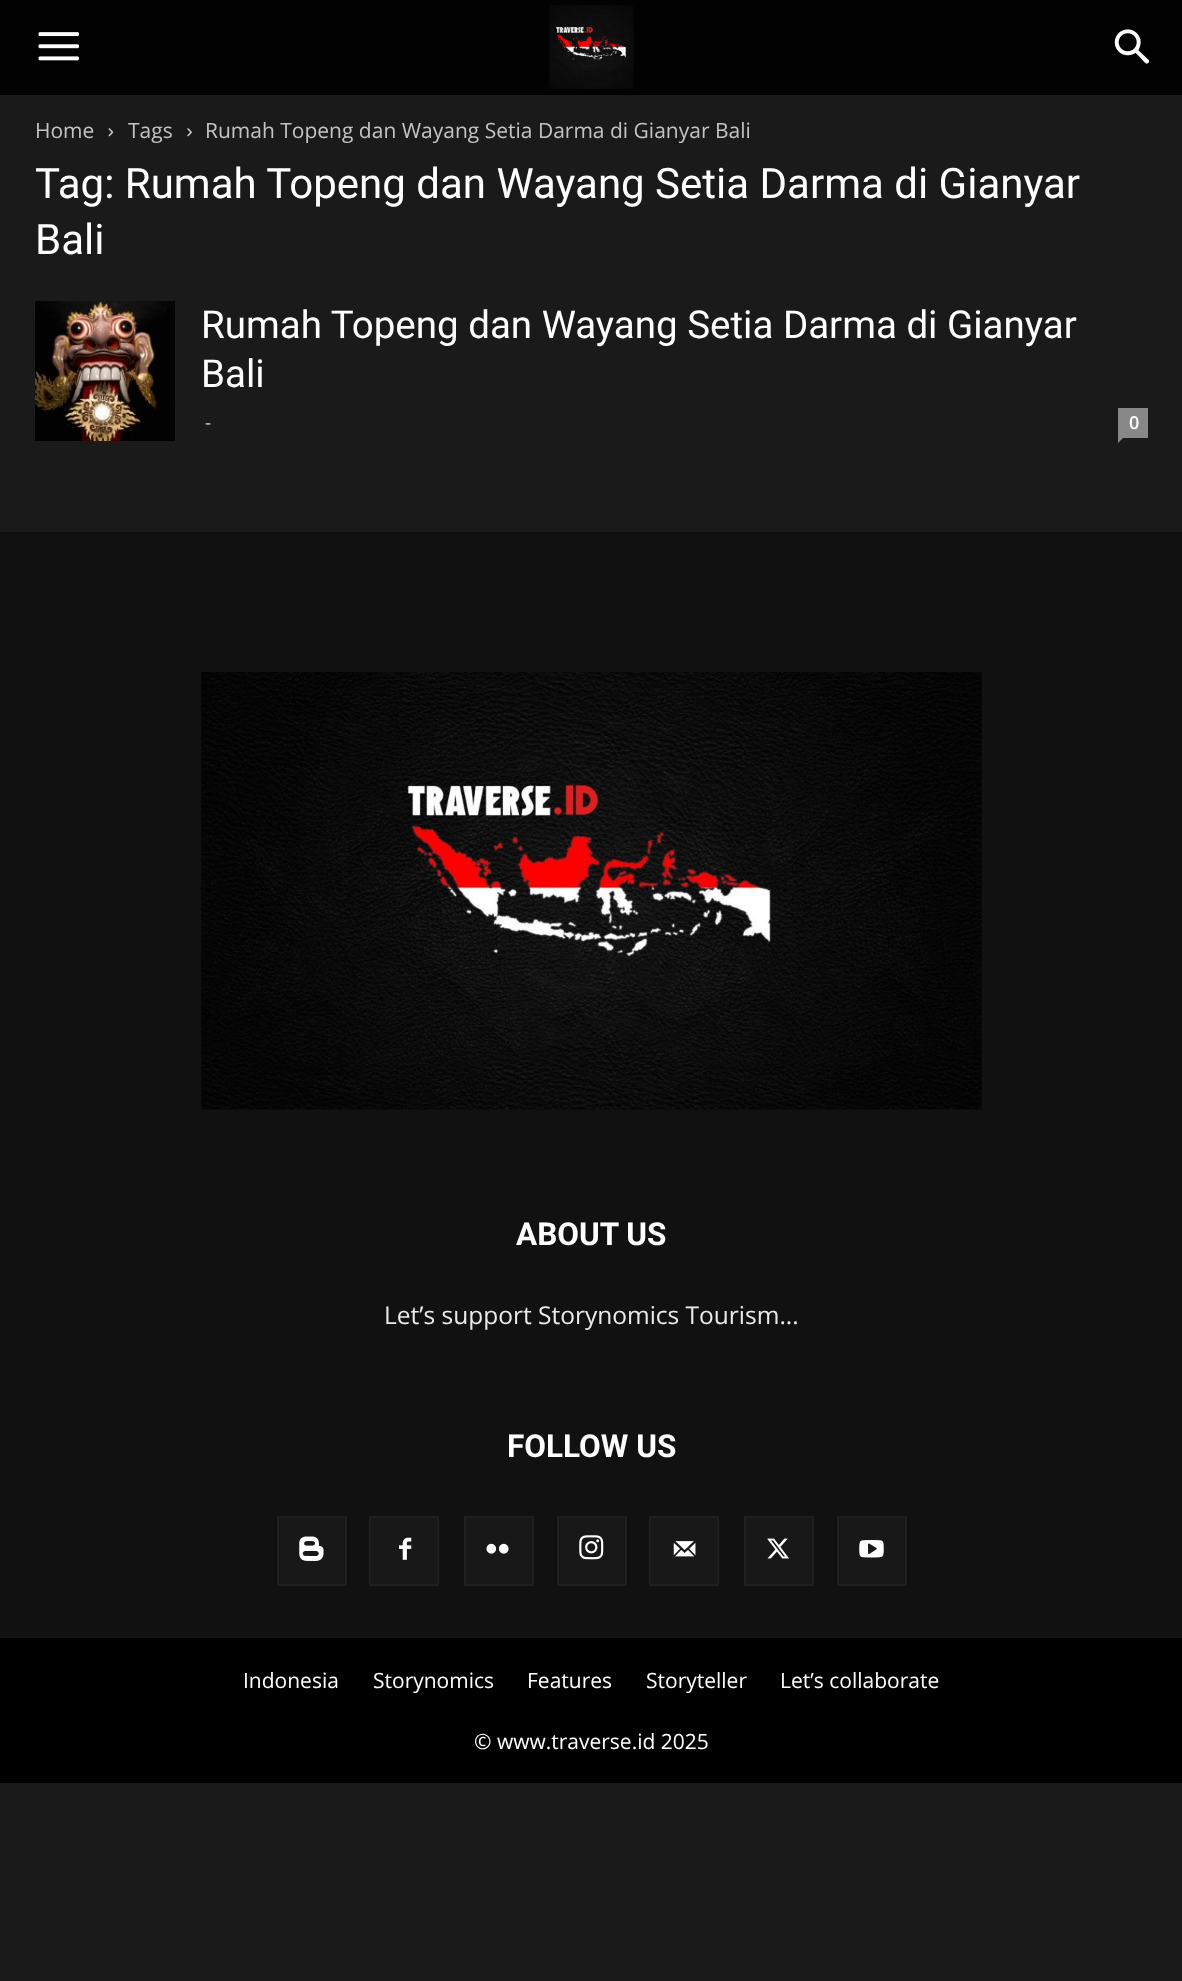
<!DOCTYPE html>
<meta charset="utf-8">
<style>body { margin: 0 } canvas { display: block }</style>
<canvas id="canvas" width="1182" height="1981"></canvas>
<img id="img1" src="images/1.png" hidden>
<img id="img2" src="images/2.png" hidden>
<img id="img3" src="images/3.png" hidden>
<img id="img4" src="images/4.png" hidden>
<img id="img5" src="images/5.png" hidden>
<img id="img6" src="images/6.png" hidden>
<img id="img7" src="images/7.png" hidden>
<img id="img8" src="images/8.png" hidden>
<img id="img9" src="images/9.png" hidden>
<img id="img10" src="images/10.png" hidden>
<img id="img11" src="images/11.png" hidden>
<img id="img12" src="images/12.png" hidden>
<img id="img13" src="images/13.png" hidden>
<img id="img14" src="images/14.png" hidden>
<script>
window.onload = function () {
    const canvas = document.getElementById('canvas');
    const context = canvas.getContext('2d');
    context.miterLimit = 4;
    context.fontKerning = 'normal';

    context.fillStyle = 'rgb(26, 26, 26)';
    context.fillRect(0, 0, 1182, 1981);
    context.fillStyle = 'rgb(2, 2, 2)';
    context.fillRect(0, 0, 1182, 95);
    context.drawImage(document.getElementById('img1'), 38, 32, 41, 29);
    context.drawImage(document.getElementById('img2'), 549, 5, 85, 84);
    context.drawImage(document.getElementById('img3'), 1114, 29, 36, 35);
    context.drawImage(document.getElementById('img4'), 108, 128, 6, 9);
    context.drawImage(document.getElementById('img5'), 187, 128, 5, 9);
    context.drawImage(document.getElementById('img6'), 35, 301, 140, 140);
    context.fillStyle = 'rgb(136, 136, 136)';
    context.fillRect(1118, 408, 30, 30);
    context.beginPath();
    context.moveTo(1118, 437.5);
    context.lineTo(1123.5, 437.5);
    context.lineTo(1118, 443);
    context.closePath();
    context.fill();
    context.fillStyle = 'rgb(17, 17, 17)';
    context.fillRect(0, 532, 1182, 1106);
    context.drawImage(document.getElementById('img7'), 201, 672, 781, 438);
    context.fillStyle = 'rgb(24, 24, 24)';
    context.fillRect(279, 1518, 66, 66);
    context.drawImage(document.getElementById('img8'), 299, 1536, 25, 25);
    context.strokeStyle = 'rgb(31, 31, 31)';
    context.lineWidth = 2;
    context.strokeRect(278, 1517, 68, 68);
    context.fillRect(371, 1518, 66, 66);
    context.drawImage(document.getElementById('img9'), 399, 1537, 13, 23);
    context.strokeRect(370, 1517, 68, 68);
    context.fillRect(466, 1518, 66, 66);
    context.drawImage(document.getElementById('img10'), 486, 1543, 23, 11);
    context.strokeRect(465, 1517, 68, 68);
    context.fillRect(559, 1518, 66, 66);
    context.drawImage(document.getElementById('img11'), 579, 1535, 25, 25);
    context.strokeRect(558, 1517, 68, 68);
    context.fillRect(651, 1518, 66, 66);
    context.drawImage(document.getElementById('img12'), 673, 1541, 23, 16);
    context.strokeRect(650, 1517, 68, 68);
    context.fillRect(746, 1518, 66, 66);
    context.drawImage(document.getElementById('img13'), 767, 1538, 22, 21);
    context.strokeRect(745, 1517, 68, 68);
    context.fillRect(839, 1518, 66, 66);
    context.drawImage(document.getElementById('img14'), 859, 1540, 25, 18);
    context.strokeRect(838, 1517, 68, 68);
    context.fillStyle = 'rgb(0, 0, 0)';
    context.fillRect(0, 1638, 1182, 145);
    context.font = '21px Open Sans';
    context.fillStyle = 'rgb(195, 195, 195)';
    context.fillText('Home', 35, 138);
    context.fillText('Tags', 128, 138);
    context.fillText('Rumah Topeng dan Wayang Setia Darma di Gianyar Bali', 205, 138);
    context.font = '42px Roboto';
    context.fillStyle = 'rgb(255, 255, 255)';
    context.fillText('Tag: Rumah Topeng dan Wayang Setia Darma di Gianyar', 35, 198);
    context.fillText('Bali', 35, 254);
    context.font = '38.5px Roboto';
    context.fillText('Rumah Topeng dan Wayang Setia Darma di Gianyar', 201, 338);
    context.fillText('Bali', 201, 387);
    context.font = '19px Open Sans';
    context.fillStyle = 'rgb(204, 204, 204)';
    context.fillText('-', 205, 429);
    context.font = '600 18px Open Sans';
    context.fillStyle = 'rgb(255, 255, 255)';
    context.fillText('0', 1129, 429);
    context.font = 'bold 31.5px Roboto';
    context.fillText('ABOUT US', 516, 1245);
    context.font = '24.5px Open Sans';
    context.fillStyle = 'rgb(234, 234, 234)';
    context.fillText('Let’s support Storynomics Tourism...', 384, 1324);
    context.font = 'bold 31.5px Roboto';
    context.fillStyle = 'rgb(255, 255, 255)';
    context.fillText('FOLLOW US', 507, 1457);
    context.font = '21px Open Sans';
    context.fillText('Indonesia', 243, 1688);
    context.fillText('Storynomics', 373, 1688);
    context.fillText('Features', 527, 1688);
    context.fillText('Storyteller', 646, 1688);
    context.fillText('Let’s collaborate', 780, 1688);
    context.fillText('© www.traverse.id 2025', 474, 1749);
};
</script>
